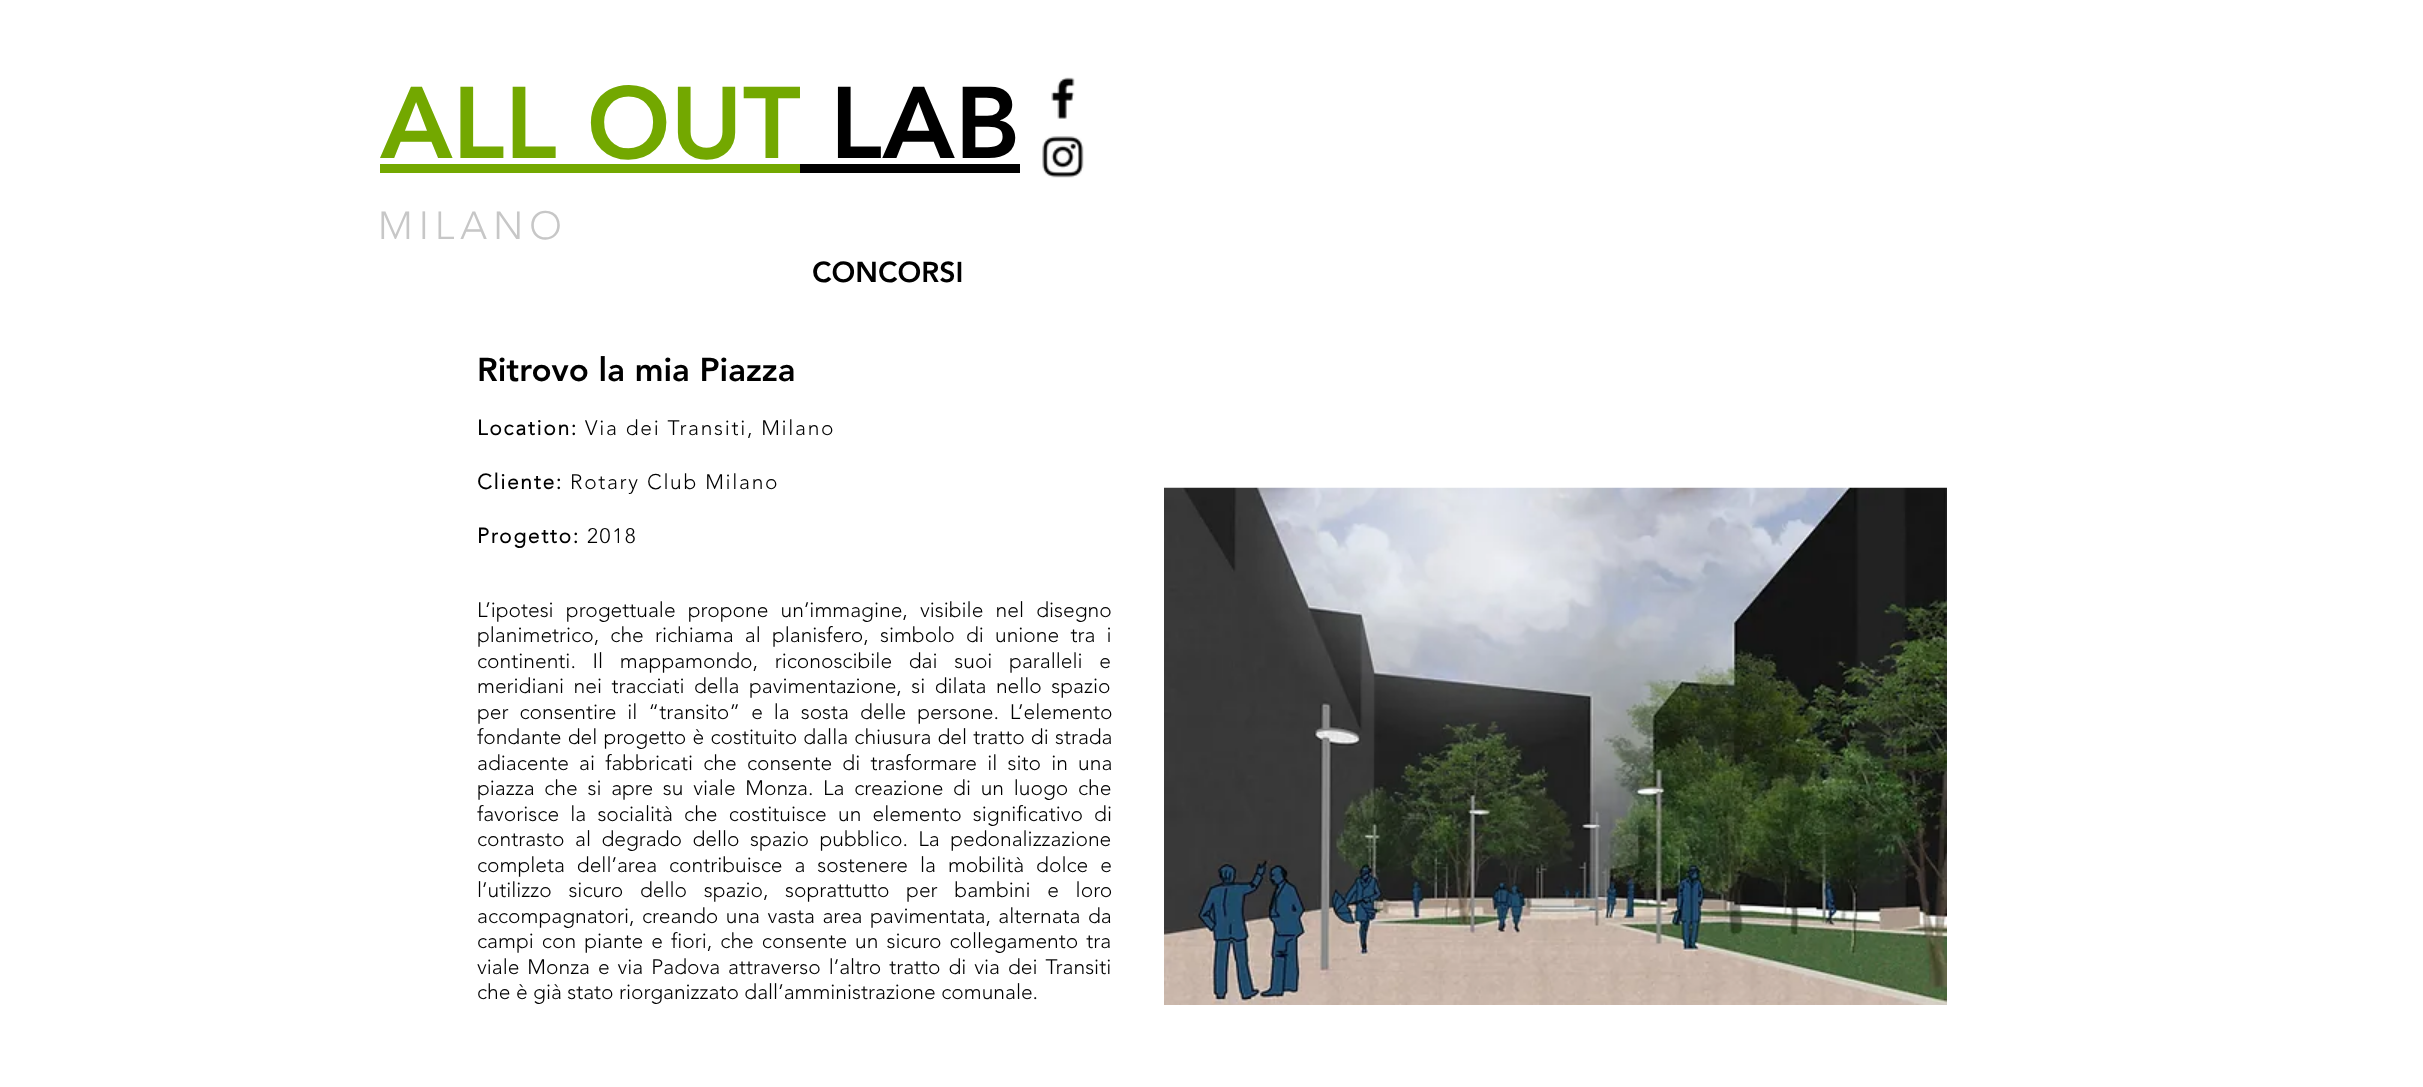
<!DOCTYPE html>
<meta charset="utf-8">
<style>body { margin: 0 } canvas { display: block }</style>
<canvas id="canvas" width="2423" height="1087"></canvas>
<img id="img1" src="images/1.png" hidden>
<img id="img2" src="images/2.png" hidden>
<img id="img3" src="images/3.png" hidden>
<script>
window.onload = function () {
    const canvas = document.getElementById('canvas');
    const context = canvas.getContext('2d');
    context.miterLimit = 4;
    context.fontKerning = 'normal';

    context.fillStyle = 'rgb(255, 255, 255)';
    context.fillRect(0, 0, 2423, 1087);
    context.fillStyle = 'rgb(115, 168, 0)';
    context.fillRect(380, 164, 420, 9);
    context.fillStyle = 'rgb(0, 0, 0)';
    context.fillRect(800, 164, 220, 9);
    context.drawImage(document.getElementById('img1'), 1051, 77, 24, 42);
    context.drawImage(document.getElementById('img2'), 1042, 136, 42, 42);
    context.drawImage(document.getElementById('img3'), 1164, 487, 783, 518);
    context.font = '900 100.5px "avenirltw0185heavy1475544"';
    context.fillStyle = 'rgb(115, 168, 0)';
    context.fillText('ALL OUT', 380, 158);
    context.fillStyle = 'rgb(0, 0, 0)';
    context.fillText('LAB', 830, 158);
    context.letterSpacing = '6px';
    context.font = '300 39px "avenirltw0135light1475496"';
    context.fillStyle = 'rgb(199, 199, 199)';
    context.fillText('MILANO', 378, 239);
    context.letterSpacing = '0px';
    context.font = '900 28.5px "avenirltw0185heavy1475544"';
    context.fillStyle = 'rgb(0, 0, 0)';
    context.fillText('CONCORSI', 812, 282);
    context.font = '900 33px "avenirltw0185heavy1475544"';
    context.fillText('Ritrovo la mia Piazza', 477, 381);
    context.letterSpacing = '1.7px';
    context.font = 'bold 21px "avenirltw0135light1475496"';
    context.fillText('Location:', 477, 435);
    context.font = '300 21px "avenirltw0135light1475496"';
    context.fillText('Via dei Transiti, Milano', 585, 435);
    context.font = 'bold 21px "avenirltw0135light1475496"';
    context.fillText('Cliente:', 477, 489);
    context.font = '300 21px "avenirltw0135light1475496"';
    context.fillText('Rotary Club Milano', 570, 489);
    context.font = 'bold 21px "avenirltw0135light1475496"';
    context.fillText('Progetto:', 477, 543);
    context.font = '300 21px "avenirltw0135light1475496"';
    context.fillText('2018', 587, 543);
    context.letterSpacing = '0px';
    context.wordSpacing = '6.75px';
    context.fillText('L’ipotesi progettuale propone un’immagine, visibile nel disegno', 477, 617);
    context.wordSpacing = '5.75px';
    context.fillText('planimetrico, che richiama al planisfero, simbolo di unione tra i', 477, 642);
    context.wordSpacing = '11.25px';
    context.fillText('continenti. Il mappamondo, riconoscibile dai suoi paralleli e', 477, 668);
    context.wordSpacing = '4px';
    context.fillText('meridiani nei tracciati della pavimentazione, si dilata nello spazio', 477, 693);
    context.wordSpacing = '5.5px';
    context.fillText('per consentire il “transito” e la sosta delle persone. L’elemento', 477, 719);
    context.wordSpacing = '0.75px';
    context.fillText('fondante del progetto è costituito dalla chiusura del tratto di strada', 477, 744);
    context.wordSpacing = '4.75px';
    context.fillText('adiacente ai fabbricati che consente di trasformare il sito in una', 477, 770);
    context.wordSpacing = '4.25px';
    context.fillText('piazza che si apre su viale Monza. La creazione di un luogo che', 477, 795);
    context.wordSpacing = '5.75px';
    context.fillText('favorisce la socialità che costituisce un elemento significativo di', 477, 821);
    context.wordSpacing = '5px';
    context.fillText('contrasto al degrado dello spazio pubblico. La pedonalizzazione', 477, 846);
    context.wordSpacing = '6.5px';
    context.fillText('completa dell’area contribuisce a sostenere la mobilità dolce e', 477, 872);
    context.wordSpacing = '11.25px';
    context.fillText('l’utilizzo sicuro dello spazio, soprattutto per bambini e loro', 477, 897);
    context.wordSpacing = '2px';
    context.fillText('accompagnatori, creando una vasta area pavimentata, alternata da', 477, 923);
    context.wordSpacing = '2.6px';
    context.fillText('campi con piante e fiori, che consente un sicuro collegamento tra', 477, 948);
    context.wordSpacing = '2.5px';
    context.fillText('viale Monza e via Padova attraverso l’altro tratto di via dei Transiti', 477, 974);
    context.wordSpacing = '0px';
    context.fillText('che è già stato riorganizzato dall’amministrazione comunale.', 477, 999);
};
</script>
